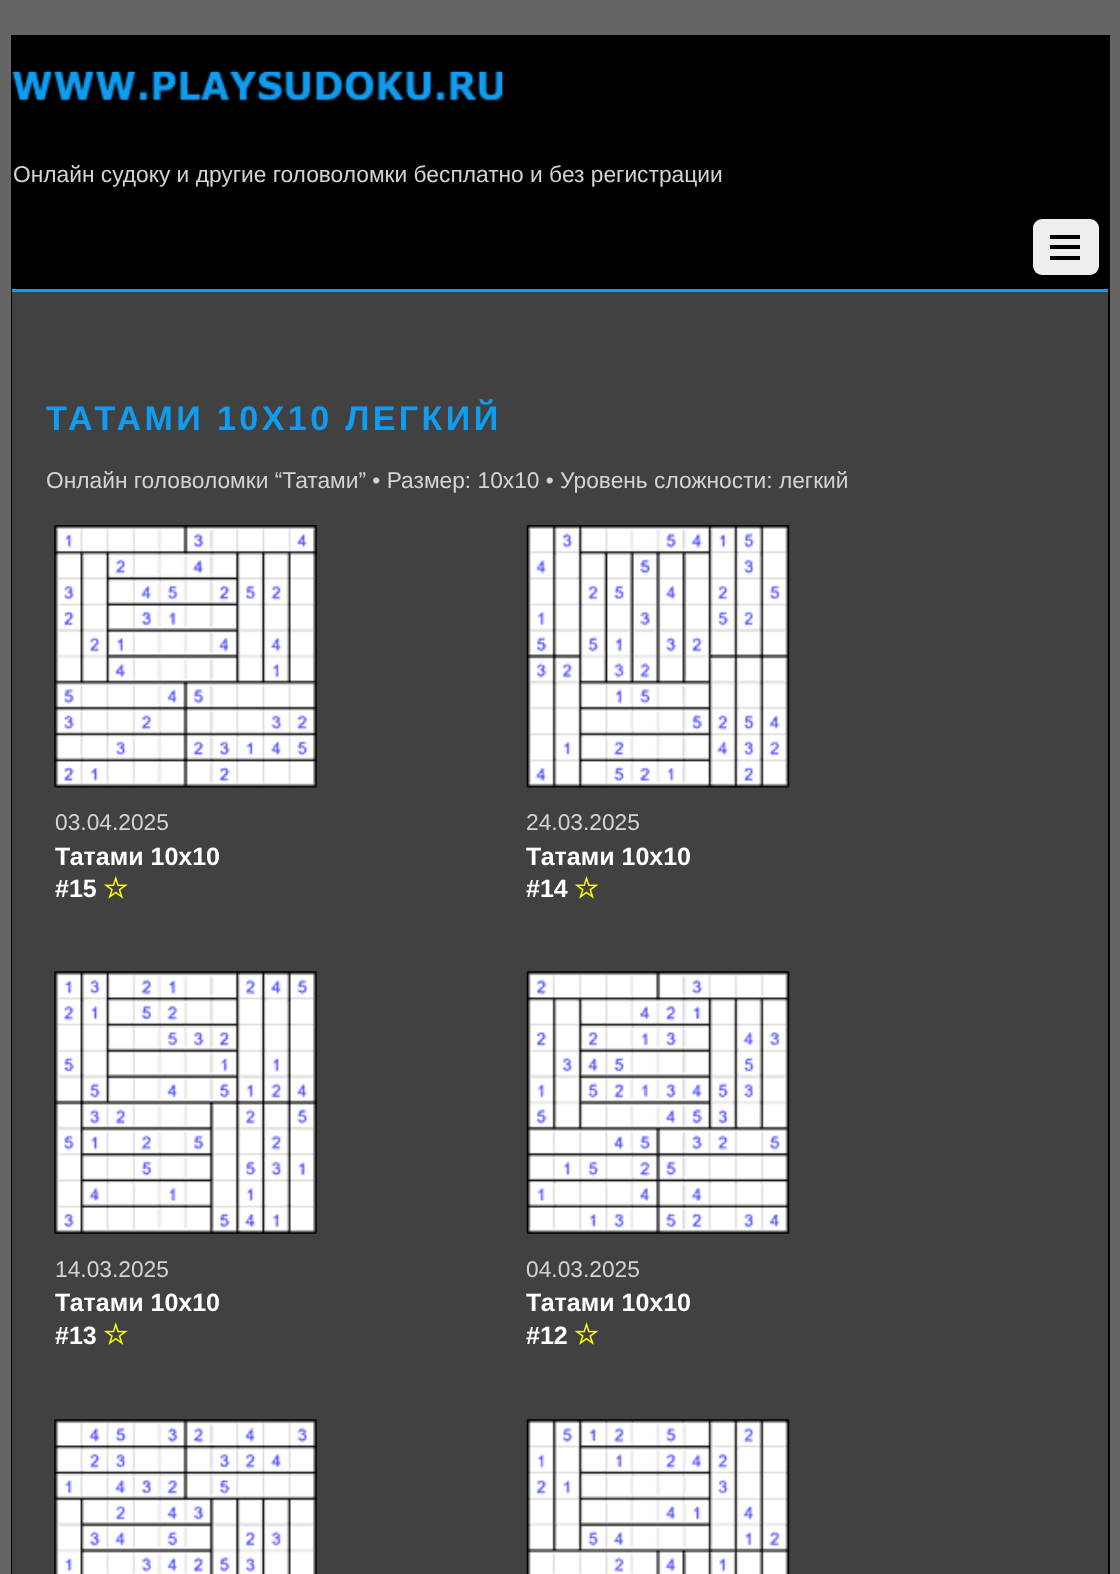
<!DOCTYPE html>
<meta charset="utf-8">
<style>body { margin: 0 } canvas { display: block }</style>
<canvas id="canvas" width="1120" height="1574"></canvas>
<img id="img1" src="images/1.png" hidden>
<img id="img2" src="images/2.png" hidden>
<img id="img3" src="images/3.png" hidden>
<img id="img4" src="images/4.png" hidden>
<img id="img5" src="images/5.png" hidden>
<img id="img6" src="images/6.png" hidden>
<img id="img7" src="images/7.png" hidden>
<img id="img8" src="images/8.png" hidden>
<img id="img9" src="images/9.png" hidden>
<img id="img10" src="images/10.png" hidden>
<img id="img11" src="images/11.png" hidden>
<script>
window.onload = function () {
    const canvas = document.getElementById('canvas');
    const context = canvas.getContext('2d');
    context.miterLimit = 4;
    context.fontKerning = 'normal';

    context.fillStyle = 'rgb(101, 101, 101)';
    context.fillRect(0, 0, 1120, 1574);
    context.strokeStyle = 'rgb(0, 0, 0)';
    context.lineWidth = 2;
    context.strokeRect(12, 36, 1097, 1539);
    context.fillStyle = 'rgb(0, 0, 0)';
    context.fillRect(13, 37, 1095, 252);
    context.fillStyle = 'rgb(16, 156, 239)';
    context.fillRect(12, 289, 1096, 3);
    context.drawImage(document.getElementById('img1'), 12, 71, 491, 30);
    context.fillStyle = 'rgb(238, 238, 238)';
    context.beginPath();
    context.roundRect(1033, 219, 66, 56, 9);
    context.fill();
    context.fillStyle = 'rgb(0, 0, 0)';
    context.fillRect(1050, 256, 30, 4);
    context.fillRect(1050, 235, 30, 4);
    context.fillRect(1050, 245, 30, 4);
    context.fillStyle = 'rgb(65, 65, 65)';
    context.fillRect(12, 292, 1096, 1282);
    context.drawImage(document.getElementById('img2'), 54, 525, 263, 263);
    context.drawImage(document.getElementById('img3'), 104, 876, 24, 23);
    context.drawImage(document.getElementById('img4'), 526, 525, 264, 263);
    context.drawImage(document.getElementById('img5'), 574, 876, 25, 23);
    context.drawImage(document.getElementById('img6'), 54, 971, 263, 263);
    context.drawImage(document.getElementById('img7'), 104, 1322, 24, 23);
    context.drawImage(document.getElementById('img8'), 526, 971, 264, 263);
    context.drawImage(document.getElementById('img9'), 574, 1322, 25, 23);
    context.drawImage(document.getElementById('img10'), 54, 1419, 263, 155);
    context.drawImage(document.getElementById('img11'), 526, 1419, 264, 155);
    context.font = '22.75px Liberation Sans';
    context.fillStyle = 'rgb(213, 210, 214)';
    context.fillText('Онлайн судоку и другие головоломки бесплатно и без регистрации', 13, 182);
    context.letterSpacing = '3.4px';
    context.font = 'bold 34.1px Liberation Sans';
    context.fillStyle = 'rgb(16, 156, 239)';
    context.fillText('ТАТАМИ 10Х10 ЛЕГКИЙ', 46, 430);
    context.letterSpacing = '0px';
    context.font = '22.75px Liberation Sans';
    context.fillStyle = 'rgb(213, 210, 214)';
    context.fillText('Онлайн головоломки “Татами” • Размер: 10х10 • Уровень сложности: легкий', 46, 488);
    context.fillText('03.04.2025', 55, 830);
    context.font = 'bold 25px Liberation Sans';
    context.fillStyle = 'rgb(255, 255, 255)';
    context.fillText('Татами 10х10', 55, 865);
    context.fillText('#15', 55, 897);
    context.font = '22.75px Liberation Sans';
    context.fillStyle = 'rgb(213, 210, 214)';
    context.fillText('24.03.2025', 526, 830);
    context.font = 'bold 25px Liberation Sans';
    context.fillStyle = 'rgb(255, 255, 255)';
    context.fillText('Татами 10х10', 526, 865);
    context.fillText('#14', 526, 897);
    context.font = '22.75px Liberation Sans';
    context.fillStyle = 'rgb(213, 210, 214)';
    context.fillText('14.03.2025', 55, 1277);
    context.font = 'bold 25px Liberation Sans';
    context.fillStyle = 'rgb(255, 255, 255)';
    context.fillText('Татами 10х10', 55, 1311);
    context.fillText('#13', 55, 1344);
    context.font = '22.75px Liberation Sans';
    context.fillStyle = 'rgb(213, 210, 214)';
    context.fillText('04.03.2025', 526, 1277);
    context.font = 'bold 25px Liberation Sans';
    context.fillStyle = 'rgb(255, 255, 255)';
    context.fillText('Татами 10х10', 526, 1311);
    context.fillText('#12', 526, 1344);
};
</script>
